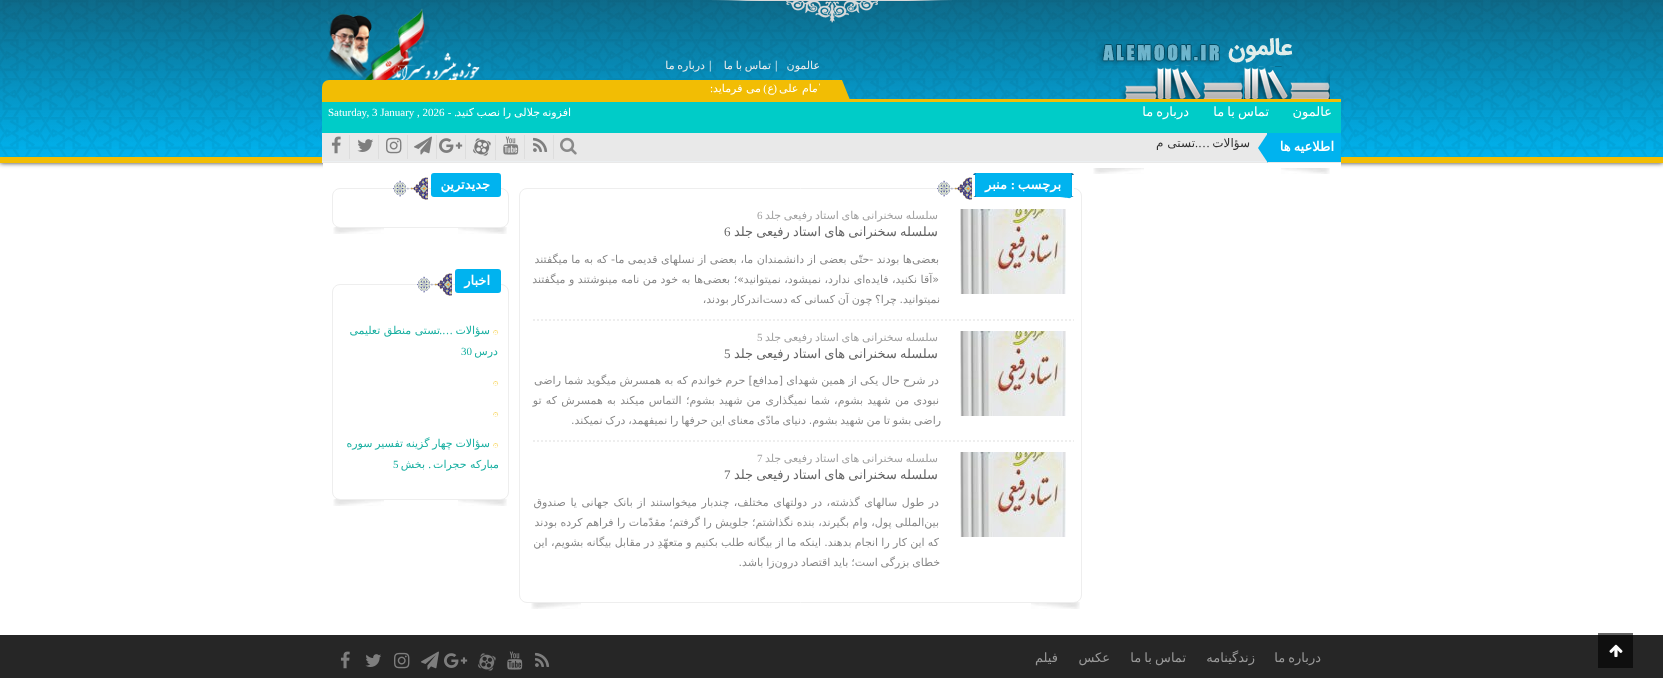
<!DOCTYPE html>
<meta charset="utf-8">
<style>body { margin: 0 } canvas { display: block }</style>
<canvas id="canvas" width="1663" height="678"></canvas>
<img id="img1" src="images/1.png" hidden>
<img id="img2" src="images/2.png" hidden>
<img id="img3" src="images/3.png" hidden>
<img id="img4" src="images/4.png" hidden>
<img id="img5" src="images/5.png" hidden>
<img id="img6" src="images/6.png" hidden>
<img id="img7" src="images/7.png" hidden>
<img id="img8" src="images/8.png" hidden>
<img id="img9" src="images/9.png" hidden>
<img id="img10" src="images/10.png" hidden>
<img id="img11" src="images/11.png" hidden>
<img id="img12" src="images/12.png" hidden>
<img id="img13" src="images/13.png" hidden>
<img id="img14" src="images/14.png" hidden>
<img id="img15" src="images/15.png" hidden>
<img id="img16" src="images/16.png" hidden>
<img id="img17" src="images/17.png" hidden>
<img id="img18" src="images/18.png" hidden>
<img id="img19" src="images/19.png" hidden>
<img id="img20" src="images/20.png" hidden>
<img id="img21" src="images/21.png" hidden>
<img id="img22" src="images/22.png" hidden>
<img id="img23" src="images/23.png" hidden>
<img id="img24" src="images/24.png" hidden>
<img id="img25" src="images/25.png" hidden>
<img id="img26" src="images/26.png" hidden>
<img id="img27" src="images/27.png" hidden>
<script>
window.onload = function () {
    const canvas = document.getElementById('canvas');
    const context = canvas.getContext('2d');
    context.miterLimit = 4;
    context.fontKerning = 'normal';

    context.fillStyle = 'rgb(255, 255, 255)';
    context.fillRect(0, 0, 1663, 678);
    context.fillStyle = 'rgb(102, 102, 102)';
    context.fillRect(1598, 633, 35, 2);
    context.fillStyle = 'rgb(51, 51, 51)';
    context.filter = 'blur(2.5px)';
    context.beginPath();
    context.rect(0, 0, 1663, 163);
    context.fill();
    context.filter = 'none';
    context.fillStyle = 'rgb(0, 179, 239)';
    context.fillRect(0, 0, 1663, 157);
    context.drawImage(document.getElementById('img1'), 0, 0, 1663, 157);
    context.fillStyle = 'rgb(242, 189, 4)';
    context.fillRect(0, 157, 1663, 6);
    context.drawImage(document.getElementById('img2'), 712, 0, 240, 23);
    context.drawImage(document.getElementById('img3'), 1097, 37, 233, 62);
    context.drawImage(document.getElementById('img4'), 327, 8, 153, 72);
    context.fillRect(322, 99, 1019, 3);
    context.beginPath();
    context.roundRect(322, 80, 510, 19, [7, 0, 0, 0]);
    context.fill();
    context.fillStyle = 'rgb(0, 204, 200)';
    context.fillRect(322, 102, 1019, 31);
    context.fillStyle = 'rgb(233, 233, 233)';
    context.fillRect(322, 133, 1019, 30);
    context.fillStyle = 'rgb(221, 221, 221)';
    context.fillRect(553, 135, 1, 24);
    context.drawImage(document.getElementById('img5'), 533, 137, 15, 15);
    context.fillRect(524, 135, 1, 24);
    context.drawImage(document.getElementById('img6'), 503, 136, 16, 19);
    context.drawImage(document.getElementById('img7'), 473, 138, 18, 18);
    context.fillRect(495, 135, 1, 25);
    context.fillRect(465, 135, 1, 24);
    context.drawImage(document.getElementById('img8'), 439, 138, 24, 15);
    context.fillRect(436, 135, 1, 24);
    context.drawImage(document.getElementById('img9'), 414, 136, 18, 19);
    context.fillRect(407, 135, 1, 24);
    context.drawImage(document.getElementById('img10'), 386, 137, 16, 17);
    context.fillRect(378, 135, 1, 24);
    context.drawImage(document.getElementById('img11'), 357, 139, 16, 13);
    context.fillRect(349, 135, 1, 24);
    context.drawImage(document.getElementById('img12'), 331, 136, 10, 18);
    context.fillStyle = 'rgb(236, 239, 241)';
    context.fillRect(322, 161, 945, 1);
    context.drawImage(document.getElementById('img13'), 560, 137, 17, 18);
    context.fillStyle = 'rgb(0, 179, 239)';
    context.fillRect(1267, 133, 74, 29);
    context.beginPath();
    context.moveTo(1268, 133);
    context.lineTo(1268, 163);
    context.lineTo(1258, 148);
    context.closePath();
    context.fill();
    context.fillStyle = 'rgb(255, 255, 255)';
    context.fillRect(323, 163, 1018, 6);
    context.drawImage(document.getElementById('img14'), 1093, 168, 237, 6);
    context.drawImage(document.getElementById('img15'), 531, 602, 549, 7);
    context.beginPath();
    context.roundRect(519.5, 188.5, 562, 414, 7.5);
    context.strokeStyle = 'rgb(238, 238, 238)';
    context.stroke();
    context.fillStyle = 'rgb(0, 102, 159)';
    context.beginPath();
    context.roundRect(973, 173, 101, 24, 3);
    context.fill();
    context.fillStyle = 'rgb(0, 179, 239)';
    context.beginPath();
    context.moveTo(976, 173);
    context.lineTo(975, 175);
    context.lineTo(975, 195);
    context.lineTo(976, 197);
    context.lineTo(1055, 197);
    context.bezierCurveTo(1071, 197, 1072, 202, 1072, 191);
    context.bezierCurveTo(1072, 179, 1072, 173, 1071, 173);
    context.closePath();
    context.fill();
    context.fillStyle = 'rgb(255, 255, 255)';
    context.fillRect(1072, 175, 2, 21);
    context.fillRect(973, 175, 2, 21);
    context.drawImage(document.getElementById('img16'), 937, 177, 35, 23);
    context.beginPath();
    context.moveTo(533, 320);
    context.lineTo(1074, 320);
    context.lineWidth = 2;
    context.setLineDash([2, 2]);
    context.stroke();
    context.drawImage(document.getElementById('img17'), 960, 209, 106, 85);
    context.beginPath();
    context.moveTo(533, 441);
    context.lineTo(1074, 441);
    context.stroke();
    context.drawImage(document.getElementById('img17'), 960, 331, 106, 85);
    context.drawImage(document.getElementById('img17'), 960, 452, 106, 85);
    context.drawImage(document.getElementById('img18'), 333, 227, 174, 7);
    context.beginPath();
    context.roundRect(332.5, 188.5, 176, 39, 7.5);
    context.lineWidth = 1;
    context.setLineDash([]);
    context.stroke();
    context.fillStyle = 'rgb(0, 179, 239)';
    context.beginPath();
    context.roundRect(431, 173, 70, 24, 3);
    context.fill();
    context.drawImage(document.getElementById('img16'), 393, 177, 35, 23);
    context.drawImage(document.getElementById('img18'), 333, 499, 174, 7);
    context.beginPath();
    context.roundRect(332.5, 284.5, 176, 215, 7.5);
    context.stroke();
    context.beginPath();
    context.roundRect(455, 269, 46, 24, 3);
    context.fill();
    context.drawImage(document.getElementById('img16'), 417, 273, 35, 23);
    context.fillStyle = 'rgb(38, 38, 38)';
    context.fillRect(0, 635, 1663, 43);
    context.fillStyle = 'rgb(15, 15, 15)';
    context.fillRect(1598, 635, 35, 33);
    context.drawImage(document.getElementById('img19'), 1609, 644, 14, 14);
    context.drawImage(document.getElementById('img20'), 535, 652, 15, 15);
    context.drawImage(document.getElementById('img21'), 507, 651, 16, 19);
    context.drawImage(document.getElementById('img22'), 478, 653, 18, 18);
    context.drawImage(document.getElementById('img23'), 444, 653, 24, 15);
    context.drawImage(document.getElementById('img24'), 421, 651, 18, 19);
    context.drawImage(document.getElementById('img25'), 394, 652, 16, 17);
    context.drawImage(document.getElementById('img26'), 365, 654, 16, 13);
    context.drawImage(document.getElementById('img27'), 340, 651, 10, 18);
    context.direction = 'rtl';
    context.font = '11px DejaVu Sans';
    context.fillStyle = 'rgb(236, 236, 236)';
    context.fillText('عالمون', 820, 69);
    context.direction = 'ltr';
    context.font = '12px Liberation Serif';
    context.fillStyle = 'rgb(255, 255, 255)';
    context.fillText('|', 775, 69);
    context.wordSpacing = '-0.75px';
    context.direction = 'rtl';
    context.font = '11px DejaVu Sans';
    context.fillStyle = 'rgb(236, 236, 236)';
    context.fillText('تماس با ما', 771, 69);
    context.wordSpacing = '0px';
    context.direction = 'ltr';
    context.font = '12px Liberation Serif';
    context.fillStyle = 'rgb(255, 255, 255)';
    context.fillText('|', 709, 69);
    context.wordSpacing = '-0.75px';
    context.direction = 'rtl';
    context.font = '11px DejaVu Sans';
    context.fillStyle = 'rgb(236, 236, 236)';
    context.fillText('درباره ما', 705, 69);
    context.wordSpacing = '0px';
    context.fillStyle = 'rgb(255, 255, 255)';
    context.fillText('امام علی', 821, 92);
    context.fillStyle = 'rgb(242, 189, 4)';
    context.beginPath();
    context.moveTo(850, 100);
    context.lineTo(812, 100);
    context.lineTo(822, 80);
    context.lineTo(842, 80);
    context.closePath();
    context.fill();
    context.font = '11px Liberation Serif';
    context.fillStyle = 'rgb(255, 255, 255)';
    context.fillText('(', 777, 92);
    context.font = '11px DejaVu Sans';
    context.fillText('ع', 774, 92);
    context.font = '11px Liberation Serif';
    context.fillText(')', 767, 92);
    context.font = '11px DejaVu Sans';
    context.fillText('می فرماید', 761, 92);
    context.font = '11px Liberation Serif';
    context.fillText(':', 713, 92);
    context.font = '13px DejaVu Sans';
    context.fillText('عالمون', 1332, 116);
    context.wordSpacing = '-1px';
    context.fillText('تماس با ما', 1269, 116);
    context.fillText('درباره ما', 1189, 116);
    context.wordSpacing = '0px';
    context.font = '11px DejaVu Sans';
    context.fillText('افزونه', 571, 116);
    context.fillText('جلالی', 540, 116);
    context.fillText('را', 511, 116);
    context.fillText('نصب', 500, 116);
    context.fillText('کنید', 474, 116);
    context.font = '11px Liberation Serif';
    context.fillText('. -', 457, 116);
    context.direction = 'ltr';
    context.fillText('Saturday, 3 January , 2026', 328, 116);
    context.wordSpacing = '-1px';
    context.direction = 'rtl';
    context.font = 'bold 13px DejaVu Sans';
    context.fillText('اطلاعیه ها', 1334, 151);
    context.wordSpacing = '0px';
    context.font = '12px DejaVu Sans';
    context.fillStyle = 'rgb(51, 51, 51)';
    context.fillText('سؤالات', 1250, 147);
    context.font = '12px Liberation Serif';
    context.fillText('….', 1210, 147);
    context.font = '12px DejaVu Sans';
    context.fillText('تستی م', 1195, 147);
    context.font = 'bold 13px DejaVu Sans';
    context.fillStyle = 'rgb(255, 255, 255)';
    context.fillText('برچسب', 1061, 189);
    context.font = 'bold 13px Liberation Serif';
    context.fillText(':', 1015, 189);
    context.font = 'bold 13px DejaVu Sans';
    context.fillText('منبر', 1007, 189);
    context.wordSpacing = '-0.75px';
    context.font = '11px DejaVu Sans';
    context.fillStyle = 'rgb(161, 161, 161)';
    context.fillText('سلسله سخنرانی های استاد رفیعی جلد', 938, 219);
    context.wordSpacing = '0px';
    context.direction = 'ltr';
    context.font = '11px Liberation Serif';
    context.fillText('6', 757, 219);
    context.wordSpacing = '-1px';
    context.direction = 'rtl';
    context.font = '13px DejaVu Sans';
    context.fillStyle = 'rgb(102, 102, 102)';
    context.fillText('سلسله سخنرانی های استاد رفیعی جلد', 938, 236);
    context.wordSpacing = '0px';
    context.direction = 'ltr';
    context.font = '13px Liberation Serif';
    context.fillText('6', 724, 236);
    context.direction = 'rtl';
    context.font = '11px DejaVu Sans';
    context.fillStyle = 'rgb(136, 136, 136)';
    context.fillText('بعضی‌ها بودند -حتّی بعضی از دانشمندان ما، بعضی از نسلهای قدیمی ما- که به ما میگفتند', 939, 263);
    context.fillText('«آقا نکنید، فایده‌ای ندارد، نمیشود، نمیتوانید»؛ بعضی‌ها به خود من نامه مینوشتند و میگفتند', 939, 283);
    context.wordSpacing = '-0.7px';
    context.fillText('نمیتوانید. چرا؟ چون آن کسانی که دست‌اندرکار بودند،', 940, 303);
    context.wordSpacing = '-0.75px';
    context.fillStyle = 'rgb(161, 161, 161)';
    context.fillText('سلسله سخنرانی های استاد رفیعی جلد', 938, 341);
    context.wordSpacing = '0px';
    context.direction = 'ltr';
    context.font = '11px Liberation Serif';
    context.fillText('5', 757, 341);
    context.wordSpacing = '-1px';
    context.direction = 'rtl';
    context.font = '13px DejaVu Sans';
    context.fillStyle = 'rgb(102, 102, 102)';
    context.fillText('سلسله سخنرانی های استاد رفیعی جلد', 938, 358);
    context.wordSpacing = '0px';
    context.direction = 'ltr';
    context.font = '13px Liberation Serif';
    context.fillText('5', 724, 358);
    context.wordSpacing = '-0.2px';
    context.direction = 'rtl';
    context.font = '11px DejaVu Sans';
    context.fillStyle = 'rgb(136, 136, 136)';
    context.fillText('در شرح حال یکی از همین شهدای [مدافع] حرم خواندم که به همسرش میگوید شما راضی', 939, 384);
    context.wordSpacing = '0.75px';
    context.fillText('نبودی من شهید بشوم، شما نمیگذاری من شهید بشوم؛ التماس میکند به همسرش که تو', 939, 404);
    context.wordSpacing = '-0.7px';
    context.fillText('راضی بشو تا من شهید بشوم. دنیای مادّی معنای این حرفها را نمیفهمد، درک نمیکند.', 941, 424);
    context.wordSpacing = '-0.75px';
    context.fillStyle = 'rgb(161, 161, 161)';
    context.fillText('سلسله سخنرانی های استاد رفیعی جلد', 938, 462);
    context.wordSpacing = '0px';
    context.direction = 'ltr';
    context.font = '11px Liberation Serif';
    context.fillText('7', 757, 462);
    context.wordSpacing = '-1px';
    context.direction = 'rtl';
    context.font = '13px DejaVu Sans';
    context.fillStyle = 'rgb(102, 102, 102)';
    context.fillText('سلسله سخنرانی های استاد رفیعی جلد', 938, 479);
    context.wordSpacing = '0px';
    context.direction = 'ltr';
    context.font = '13px Liberation Serif';
    context.fillText('7', 724, 479);
    context.wordSpacing = '1.1px';
    context.direction = 'rtl';
    context.font = '11px DejaVu Sans';
    context.fillStyle = 'rgb(136, 136, 136)';
    context.fillText('در طول سالهای گذشته، در دولتهای مختلف، چندبار میخواستند از بانک جهانی یا صندوق', 939, 506);
    context.wordSpacing = '0px';
    context.fillText('بین‌المللی پول، وام بگیرند، بنده نگذاشتم؛ جلویش را گرفتم؛ مقدّمات را فراهم کرده بودند', 939, 526);
    context.wordSpacing = '-0.25px';
    context.fillText('که این کار را انجام بدهند. اینکه ما از بیگانه طلب بکنیم و متعهّدِ در مقابل بیگانه بشویم، این', 939, 546);
    context.wordSpacing = '-0.7px';
    context.fillText('خطای بزرگی است؛ باید اقتصاد درون‌زا باشد.', 940, 566);
    context.wordSpacing = '0px';
    context.font = 'bold 13px DejaVu Sans';
    context.fillStyle = 'rgb(255, 255, 255)';
    context.fillText('جدیدترین', 490, 189);
    context.fillText('اخبار', 490, 285);
    context.direction = 'ltr';
    context.font = '9px Cascadia Code';
    context.fillStyle = 'rgb(242, 189, 4)';
    context.fillText('۞', 493, 334);
    context.direction = 'rtl';
    context.font = '11px DejaVu Sans';
    context.fillStyle = 'rgb(27, 176, 162)';
    context.fillText('سؤالات', 490, 334);
    context.fillText('تستی منطق تعلیمی', 440, 334);
    context.font = '11px Liberation Serif';
    context.fillText('….', 453, 334);
    context.font = '11px DejaVu Sans';
    context.fillText('درس', 498, 355);
    context.direction = 'ltr';
    context.font = '11px Liberation Serif';
    context.fillText('30', 461, 355);
    context.font = '9px Cascadia Code';
    context.fillStyle = 'rgb(242, 189, 4)';
    context.fillText('۞', 493, 385);
    context.fillText('۞', 493, 416);
    context.fillText('۞', 493, 447);
    context.wordSpacing = '-0.75px';
    context.direction = 'rtl';
    context.font = '11px DejaVu Sans';
    context.fillStyle = 'rgb(27, 176, 162)';
    context.fillText('سؤالات چهار گزینه تفسیر سوره', 490, 447);
    context.wordSpacing = '0px';
    context.fillText('مبارکه حجرات', 499, 468);
    context.font = '11px Liberation Serif';
    context.fillText('.', 431, 468);
    context.font = '11px DejaVu Sans';
    context.fillText('بخش', 425, 468);
    context.direction = 'ltr';
    context.font = '11px Liberation Serif';
    context.fillText('5', 393, 468);
    context.wordSpacing = '-1px';
    context.direction = 'rtl';
    context.font = '13px DejaVu Sans';
    context.fillStyle = 'rgb(153, 153, 153)';
    context.fillText('درباره ما', 1321, 662);
    context.wordSpacing = '0px';
    context.fillText('زندگینامه', 1255, 662);
    context.wordSpacing = '-1px';
    context.fillText('تماس با ما', 1186, 662);
    context.wordSpacing = '0px';
    context.fillText('عکس', 1110, 662);
    context.fillText('فیلم', 1058, 662);
};
</script>
